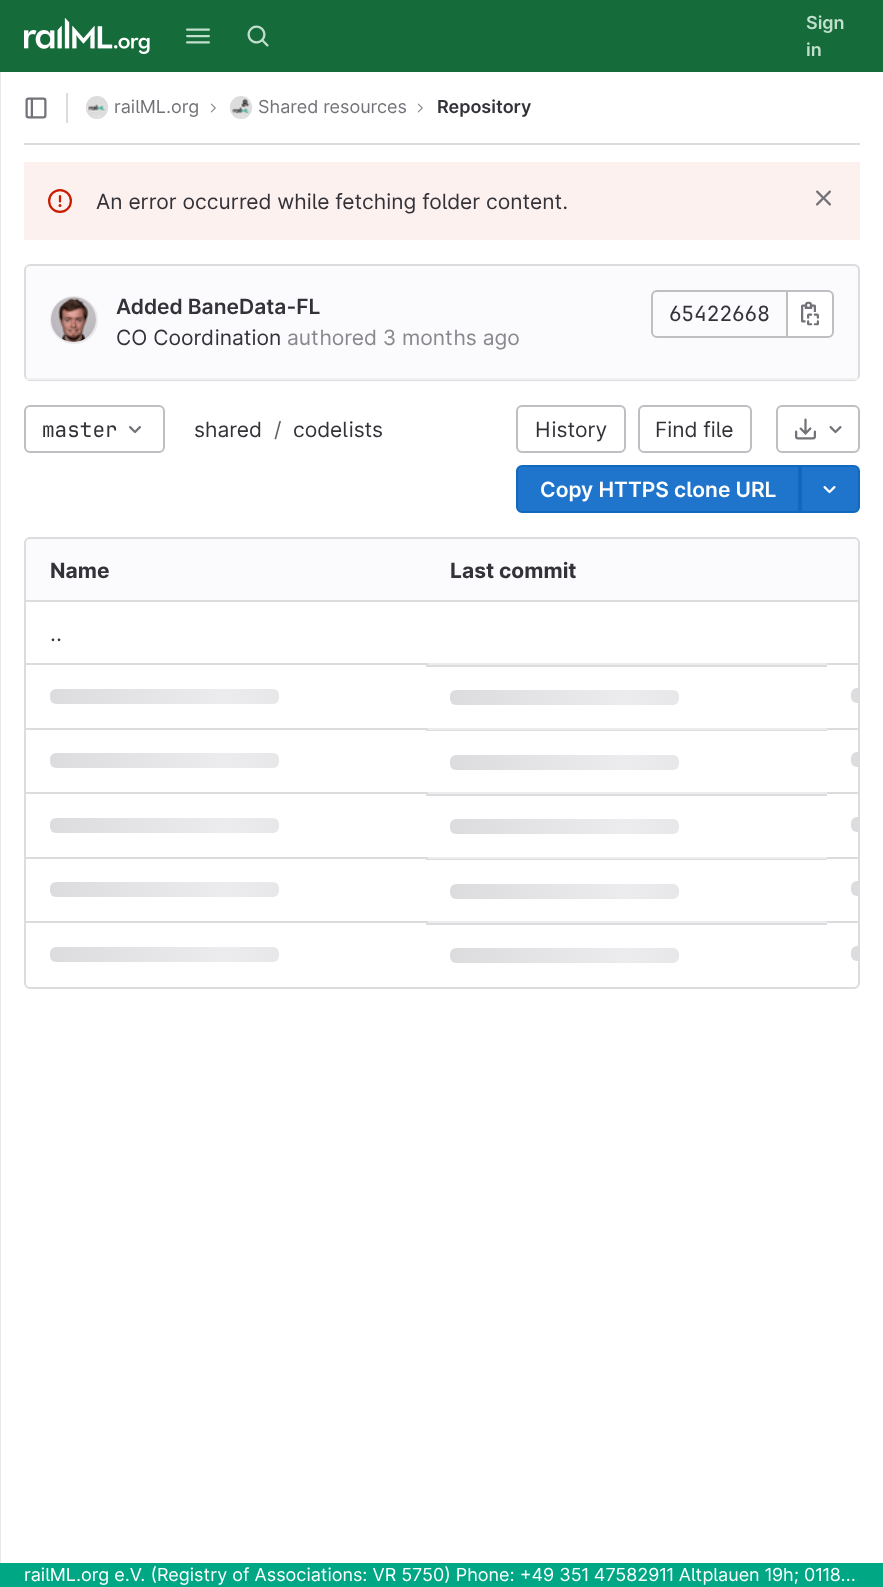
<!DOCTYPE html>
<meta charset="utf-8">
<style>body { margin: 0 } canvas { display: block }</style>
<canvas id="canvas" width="883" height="1587"></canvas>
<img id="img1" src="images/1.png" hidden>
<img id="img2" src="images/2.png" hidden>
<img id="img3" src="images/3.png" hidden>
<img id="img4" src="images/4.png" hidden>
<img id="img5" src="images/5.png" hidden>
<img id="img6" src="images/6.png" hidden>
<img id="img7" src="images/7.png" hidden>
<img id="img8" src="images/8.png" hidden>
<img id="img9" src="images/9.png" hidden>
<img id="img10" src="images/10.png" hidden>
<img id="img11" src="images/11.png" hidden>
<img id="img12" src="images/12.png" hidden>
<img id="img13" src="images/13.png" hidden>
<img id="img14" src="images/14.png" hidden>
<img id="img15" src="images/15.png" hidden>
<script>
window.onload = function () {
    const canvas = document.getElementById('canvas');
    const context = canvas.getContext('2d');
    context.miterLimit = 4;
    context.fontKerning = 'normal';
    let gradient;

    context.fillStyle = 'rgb(255, 255, 255)';
    context.fillRect(0, 0, 883, 1587);
    context.fillStyle = 'rgb(21, 107, 57)';
    context.fillRect(0, 0, 883, 72);
    context.drawImage(document.getElementById('img1'), 24, 18, 126, 36);
    context.drawImage(document.getElementById('img2'), 186, 28, 24, 16);
    context.drawImage(document.getElementById('img3'), 247, 25, 22, 22);
    context.fillStyle = 'rgb(233, 233, 233)';
    context.fillRect(0, 72, 1, 1491);
    context.fillStyle = 'rgb(220, 220, 222)';
    context.fillRect(24, 143, 836, 2);
    context.drawImage(document.getElementById('img4'), 25, 97, 22, 22);
    context.fillRect(66, 93, 2, 30);
    context.beginPath();
    context.roundRect(87, 97, 20, 21, 10);
    context.strokeStyle = 'rgb(220, 220, 222)';
    context.lineWidth = 2;
    context.stroke();
    context.drawImage(document.getElementById('img5'), 87, 98, 19, 19);
    context.drawImage(document.getElementById('img6'), 210, 103, 6, 10);
    context.beginPath();
    context.roundRect(231, 97, 20, 21, 10);
    context.stroke();
    context.drawImage(document.getElementById('img7'), 231, 98, 19, 19);
    context.drawImage(document.getElementById('img6'), 417, 103, 6, 10);
    context.fillStyle = 'rgb(252, 241, 239)';
    context.fillRect(24, 162, 836, 78);
    context.drawImage(document.getElementById('img8'), 48, 189, 24, 24);
    context.drawImage(document.getElementById('img9'), 816, 190, 15, 16);
    context.fillStyle = 'rgb(251, 250, 253)';
    context.beginPath();
    context.roundRect(25, 265, 834, 115, 5);
    context.fill();
    context.stroke();
    context.fillStyle = 'rgb(238, 240, 242)';
    context.fillRect(26, 378, 832, 2);
    context.beginPath();
    context.arc(74, 320, 23, 0, 2 * Math.PI);
    context.strokeStyle = 'rgb(233, 232, 236)';
    context.stroke();
    context.drawImage(document.getElementById('img10'), 51, 297, 45, 45);
    context.beginPath();
    context.roundRect(652, 291, 135, 46, [5, 0, 0, 5]);
    context.strokeStyle = 'rgb(191, 191, 195)';
    context.stroke();
    context.fillStyle = 'rgb(255, 255, 255)';
    context.beginPath();
    context.roundRect(787, 291, 46, 46, [0, 5, 5, 0]);
    context.fill();
    context.stroke();
    context.drawImage(document.getElementById('img11'), 801, 301, 18, 25);
    context.beginPath();
    context.roundRect(25, 406, 139, 46, 5);
    context.stroke();
    context.drawImage(document.getElementById('img12'), 129, 426, 12, 8);
    context.beginPath();
    context.roundRect(517, 406, 108, 46, 5);
    context.stroke();
    context.beginPath();
    context.roundRect(639, 406, 112, 46, 5);
    context.stroke();
    context.beginPath();
    context.roundRect(777, 406, 82, 46, 5);
    context.stroke();
    context.drawImage(document.getElementById('img13'), 795, 418, 21, 22);
    context.drawImage(document.getElementById('img14'), 829, 426, 13, 8);
    context.fillStyle = 'rgb(31, 117, 203)';
    context.beginPath();
    context.roundRect(517, 466, 282, 46, [5, 0, 0, 5]);
    context.fill();
    context.strokeStyle = 'rgb(16, 104, 191)';
    context.stroke();
    context.beginPath();
    context.roundRect(801, 466, 58, 46, [0, 5, 5, 0]);
    context.fill();
    context.stroke();
    context.drawImage(document.getElementById('img15'), 823, 486, 13, 8);
    context.beginPath();
    context.roundRect(25, 538, 834, 450, 5);
    context.strokeStyle = 'rgb(220, 220, 222)';
    context.stroke();
    context.fillStyle = 'rgb(251, 250, 253)';
    context.beginPath();
    context.roundRect(26, 539, 400, 63, [5, 0, 0, 0]);
    context.fill();
    context.fillRect(426, 539, 401, 61);
    context.beginPath();
    context.roundRect(827, 539, 31, 63, [0, 5, 0, 0]);
    context.fill();
    context.fillStyle = 'rgb(236, 236, 239)';
    context.fillRect(428, 663, 399, 2);
    context.fillStyle = 'rgb(220, 220, 222)';
    context.fillRect(26, 600, 832, 2);
    context.fillStyle = 'rgb(236, 236, 239)';
    context.fillRect(428, 728, 399, 2);
    context.fillStyle = 'rgb(220, 220, 222)';
    context.fillRect(26, 663, 402, 2);
    gradient = context.createLinearGradient(50, 689, 402, 689);
    gradient.addColorStop(0, 'rgb(220, 220, 222)');
    gradient.addColorStop(0.5, 'rgb(236, 236, 239)');
    gradient.addColorStop(1, 'rgb(220, 220, 222)');
    context.fillStyle = gradient;
    context.beginPath();
    context.roundRect(50, 689, 229, 15, 6);
    context.fill();
    context.fillStyle = 'rgb(220, 220, 222)';
    context.fillRect(426, 665, 401, 2);
    gradient = context.createLinearGradient(450, 690, 803, 690);
    gradient.addColorStop(0, 'rgb(220, 220, 222)');
    gradient.addColorStop(0.5, 'rgb(236, 236, 239)');
    gradient.addColorStop(1, 'rgb(220, 220, 222)');
    context.fillStyle = gradient;
    context.beginPath();
    context.roundRect(450, 690, 229, 15, 6);
    context.fill();
    context.fillStyle = 'rgb(220, 220, 222)';
    context.fillRect(827, 663, 31, 2);
    gradient = context.createLinearGradient(851, 688, 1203, 688);
    gradient.addColorStop(0, 'rgb(220, 220, 222)');
    gradient.addColorStop(0.5, 'rgb(236, 236, 239)');
    gradient.addColorStop(1, 'rgb(220, 220, 222)');
    context.fillStyle = gradient;
    context.beginPath();
    context.roundRect(851, 688, 7, 15, [6, 0, 0, 6]);
    context.fill();
    context.fillStyle = 'rgb(236, 236, 239)';
    context.fillRect(428, 792, 399, 2);
    context.fillStyle = 'rgb(220, 220, 222)';
    context.fillRect(26, 728, 402, 2);
    gradient = context.createLinearGradient(50, 753, 402, 753);
    gradient.addColorStop(0, 'rgb(220, 220, 222)');
    gradient.addColorStop(0.5, 'rgb(236, 236, 239)');
    gradient.addColorStop(1, 'rgb(220, 220, 222)');
    context.fillStyle = gradient;
    context.beginPath();
    context.roundRect(50, 753, 229, 15, 6);
    context.fill();
    context.fillStyle = 'rgb(220, 220, 222)';
    context.fillRect(426, 730, 401, 1);
    gradient = context.createLinearGradient(450, 755, 803, 755);
    gradient.addColorStop(0, 'rgb(220, 220, 222)');
    gradient.addColorStop(0.5, 'rgb(236, 236, 239)');
    gradient.addColorStop(1, 'rgb(220, 220, 222)');
    context.fillStyle = gradient;
    context.beginPath();
    context.roundRect(450, 755, 229, 15, 6);
    context.fill();
    context.fillStyle = 'rgb(220, 220, 222)';
    context.fillRect(827, 728, 31, 2);
    gradient = context.createLinearGradient(851, 752, 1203, 752);
    gradient.addColorStop(0, 'rgb(220, 220, 222)');
    gradient.addColorStop(0.5, 'rgb(236, 236, 239)');
    gradient.addColorStop(1, 'rgb(220, 220, 222)');
    context.fillStyle = gradient;
    context.beginPath();
    context.roundRect(851, 752, 7, 15, [6, 0, 0, 6]);
    context.fill();
    context.fillStyle = 'rgb(236, 236, 239)';
    context.fillRect(428, 857, 399, 2);
    context.fillStyle = 'rgb(220, 220, 222)';
    context.fillRect(26, 792, 402, 2);
    gradient = context.createLinearGradient(50, 818, 402, 818);
    gradient.addColorStop(0, 'rgb(220, 220, 222)');
    gradient.addColorStop(0.5, 'rgb(236, 236, 239)');
    gradient.addColorStop(1, 'rgb(220, 220, 222)');
    context.fillStyle = gradient;
    context.beginPath();
    context.roundRect(50, 818, 229, 15, 6);
    context.fill();
    context.fillStyle = 'rgb(220, 220, 222)';
    context.fillRect(426, 794, 401, 2);
    gradient = context.createLinearGradient(450, 819, 803, 819);
    gradient.addColorStop(0, 'rgb(220, 220, 222)');
    gradient.addColorStop(0.5, 'rgb(236, 236, 239)');
    gradient.addColorStop(1, 'rgb(220, 220, 222)');
    context.fillStyle = gradient;
    context.beginPath();
    context.roundRect(450, 819, 229, 15, 6);
    context.fill();
    context.fillStyle = 'rgb(220, 220, 222)';
    context.fillRect(827, 792, 31, 2);
    gradient = context.createLinearGradient(851, 817, 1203, 817);
    gradient.addColorStop(0, 'rgb(220, 220, 222)');
    gradient.addColorStop(0.5, 'rgb(236, 236, 239)');
    gradient.addColorStop(1, 'rgb(220, 220, 222)');
    context.fillStyle = gradient;
    context.beginPath();
    context.roundRect(851, 817, 7, 15, [6, 0, 0, 6]);
    context.fill();
    context.fillStyle = 'rgb(236, 236, 239)';
    context.fillRect(428, 921, 399, 2);
    context.fillStyle = 'rgb(220, 220, 222)';
    context.fillRect(26, 857, 402, 2);
    gradient = context.createLinearGradient(50, 882, 402, 882);
    gradient.addColorStop(0, 'rgb(220, 220, 222)');
    gradient.addColorStop(0.5, 'rgb(236, 236, 239)');
    gradient.addColorStop(1, 'rgb(220, 220, 222)');
    context.fillStyle = gradient;
    context.beginPath();
    context.roundRect(50, 882, 229, 15, 6);
    context.fill();
    context.fillStyle = 'rgb(220, 220, 222)';
    context.fillRect(426, 859, 401, 1);
    gradient = context.createLinearGradient(450, 884, 803, 884);
    gradient.addColorStop(0, 'rgb(220, 220, 222)');
    gradient.addColorStop(0.5, 'rgb(236, 236, 239)');
    gradient.addColorStop(1, 'rgb(220, 220, 222)');
    context.fillStyle = gradient;
    context.beginPath();
    context.roundRect(450, 884, 229, 15, 6);
    context.fill();
    context.fillStyle = 'rgb(220, 220, 222)';
    context.fillRect(827, 857, 31, 2);
    gradient = context.createLinearGradient(851, 881, 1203, 881);
    gradient.addColorStop(0, 'rgb(220, 220, 222)');
    gradient.addColorStop(0.5, 'rgb(236, 236, 239)');
    gradient.addColorStop(1, 'rgb(220, 220, 222)');
    context.fillStyle = gradient;
    context.beginPath();
    context.roundRect(851, 881, 7, 15, [6, 0, 0, 6]);
    context.fill();
    context.fillStyle = 'rgb(220, 220, 222)';
    context.fillRect(26, 921, 402, 2);
    gradient = context.createLinearGradient(50, 947, 402, 947);
    gradient.addColorStop(0, 'rgb(220, 220, 222)');
    gradient.addColorStop(0.5, 'rgb(236, 236, 239)');
    gradient.addColorStop(1, 'rgb(220, 220, 222)');
    context.fillStyle = gradient;
    context.beginPath();
    context.roundRect(50, 947, 229, 15, 6);
    context.fill();
    context.fillStyle = 'rgb(220, 220, 222)';
    context.fillRect(426, 923, 401, 2);
    gradient = context.createLinearGradient(450, 948, 803, 948);
    gradient.addColorStop(0, 'rgb(220, 220, 222)');
    gradient.addColorStop(0.5, 'rgb(236, 236, 239)');
    gradient.addColorStop(1, 'rgb(220, 220, 222)');
    context.fillStyle = gradient;
    context.beginPath();
    context.roundRect(450, 948, 229, 15, 6);
    context.fill();
    context.fillStyle = 'rgb(220, 220, 222)';
    context.fillRect(827, 921, 31, 2);
    gradient = context.createLinearGradient(851, 946, 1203, 946);
    gradient.addColorStop(0, 'rgb(220, 220, 222)');
    gradient.addColorStop(0.5, 'rgb(236, 236, 239)');
    gradient.addColorStop(1, 'rgb(220, 220, 222)');
    context.fillStyle = gradient;
    context.beginPath();
    context.roundRect(851, 946, 7, 15, [6, 0, 0, 6]);
    context.fill();
    context.fillStyle = 'rgb(0, 167, 133)';
    context.fillRect(0, 1563, 883, 24);
    context.font = '600 18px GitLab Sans';
    context.fillStyle = 'rgb(192, 223, 205)';
    context.fillText('Sign', 806, 29);
    context.fillText('in', 806, 56);
    context.font = '18px GitLab Sans';
    context.fillStyle = 'rgb(115, 114, 120)';
    context.fillText('railML.org', 114, 113);
    context.fillText('Shared resources', 258, 113);
    context.font = '600 18px GitLab Sans';
    context.fillStyle = 'rgb(51, 50, 56)';
    context.fillText('Repository', 437, 113);
    context.font = '21px GitLab Sans';
    context.fillText('An error occurred while fetching folder content.', 96, 209);
    context.font = '600 21px GitLab Sans';
    context.fillText('Added BaneData-FL', 116, 314);
    context.font = '21px GitLab Sans';
    context.fillText('CO Coordination', 116, 345);
    context.fillStyle = 'rgb(137, 136, 141)';
    context.fillText('authored 3 months ago', 287, 345);
    context.font = '21px JetBrains Mono';
    context.fillStyle = 'rgb(51, 50, 56)';
    context.fillText('65422668', 669, 321);
    context.fillText('master', 42, 437);
    context.font = '21px GitLab Sans';
    context.fillText('shared', 194, 437);
    context.fillStyle = 'rgb(98, 97, 104)';
    context.fillText('/', 274, 437);
    context.fillStyle = 'rgb(51, 50, 56)';
    context.fillText('codelists', 293, 437);
    context.fillText('History', 535, 437);
    context.fillText('Find file', 655, 437);
    context.font = '600 21px GitLab Sans';
    context.fillStyle = 'rgb(255, 255, 255)';
    context.fillText('Copy HTTPS clone URL', 540, 497);
    context.font = 'bold 21px GitLab Sans';
    context.fillStyle = 'rgb(51, 50, 56)';
    context.fillText('Name', 50, 578);
    context.fillText('Last commit', 450, 578);
    context.font = '21px GitLab Sans';
    context.fillText('..', 50, 641);
    context.font = '18px GitLab Sans';
    context.fillStyle = 'rgb(255, 255, 255)';
    context.fillText('railML.org e.V. (Registry of Associations: VR 5750) Phone: +49 351 47582911 Altplauen 19h; 0118…', 24, 1581);
};
</script>
